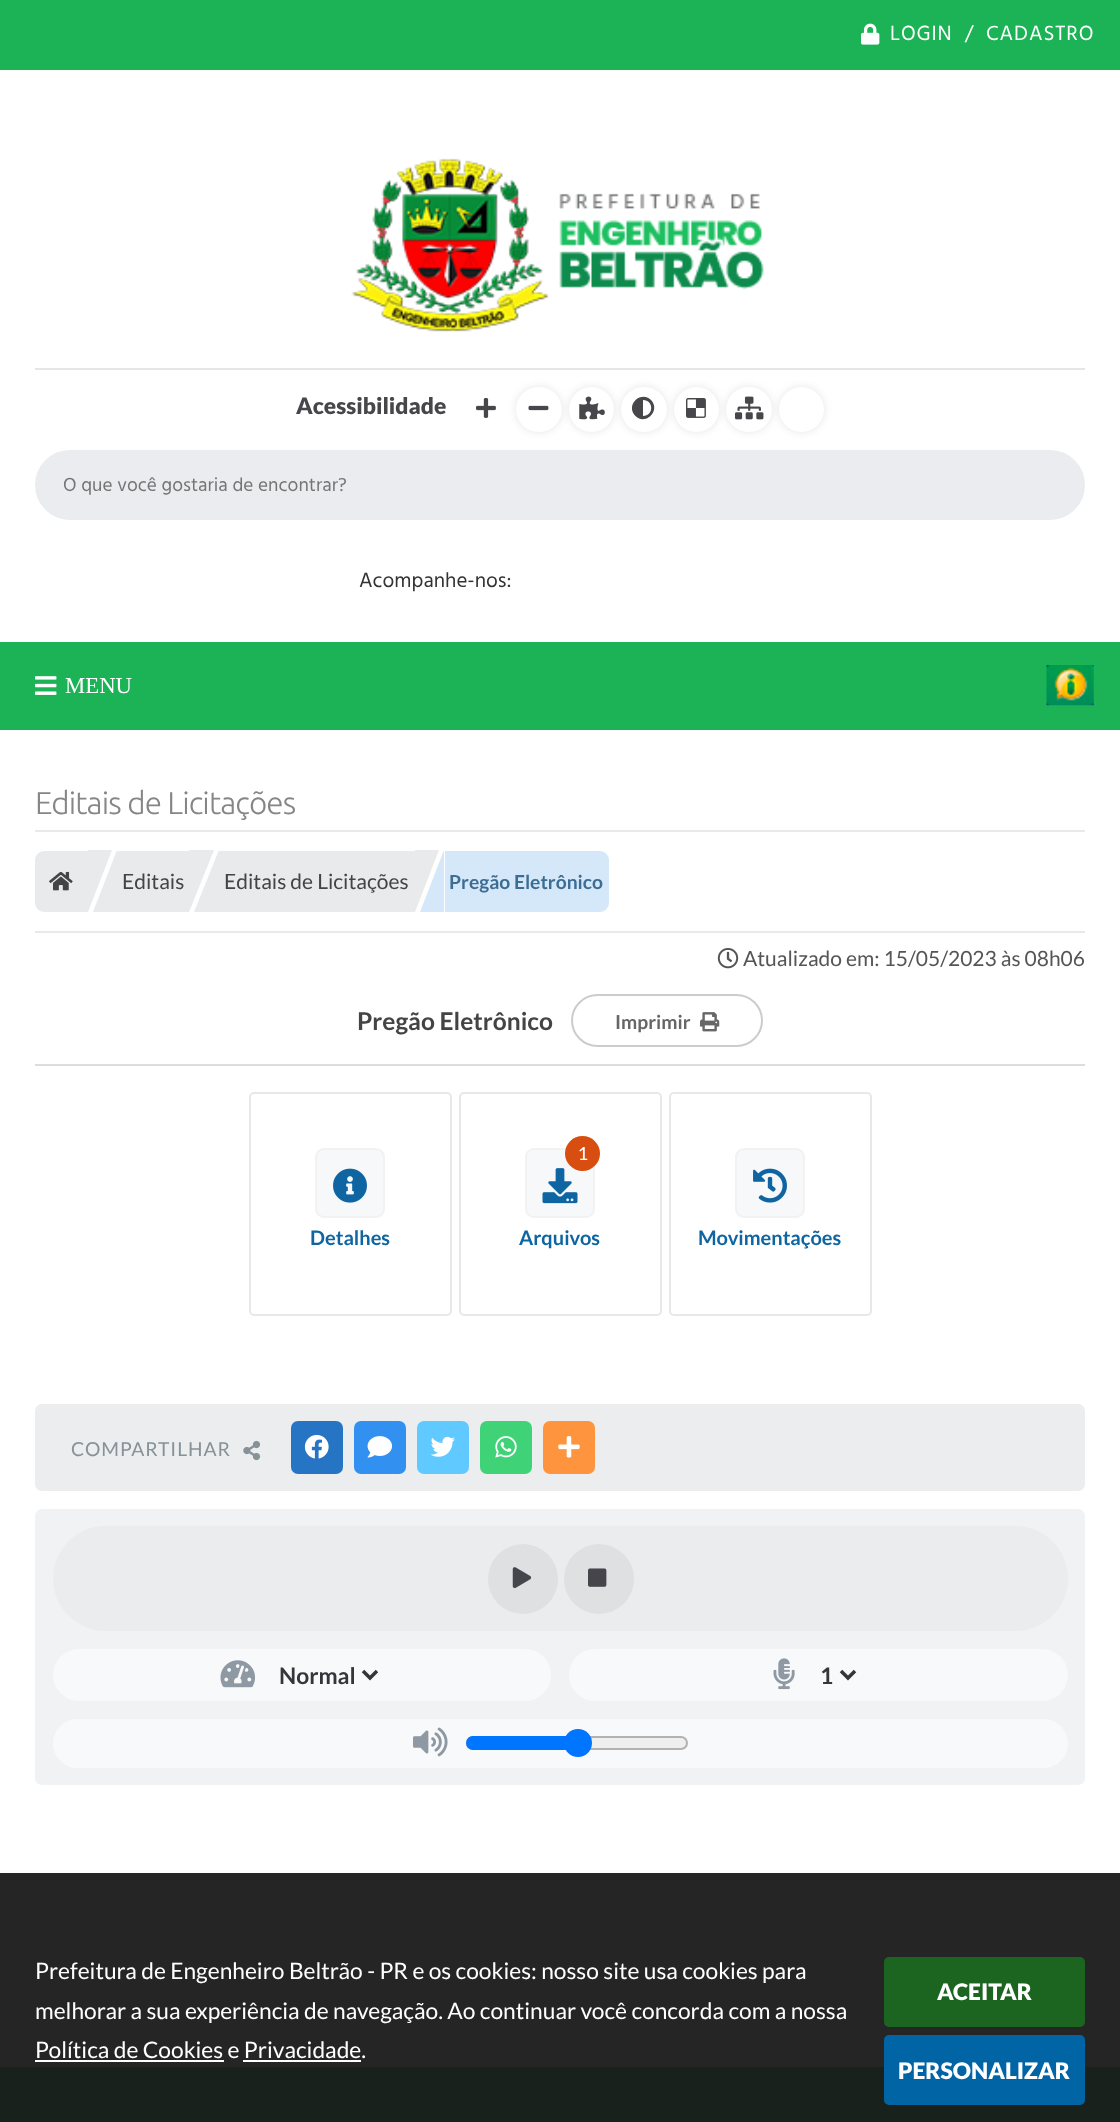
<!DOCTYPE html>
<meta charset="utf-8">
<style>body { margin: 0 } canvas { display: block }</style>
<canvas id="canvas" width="1120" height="2122"></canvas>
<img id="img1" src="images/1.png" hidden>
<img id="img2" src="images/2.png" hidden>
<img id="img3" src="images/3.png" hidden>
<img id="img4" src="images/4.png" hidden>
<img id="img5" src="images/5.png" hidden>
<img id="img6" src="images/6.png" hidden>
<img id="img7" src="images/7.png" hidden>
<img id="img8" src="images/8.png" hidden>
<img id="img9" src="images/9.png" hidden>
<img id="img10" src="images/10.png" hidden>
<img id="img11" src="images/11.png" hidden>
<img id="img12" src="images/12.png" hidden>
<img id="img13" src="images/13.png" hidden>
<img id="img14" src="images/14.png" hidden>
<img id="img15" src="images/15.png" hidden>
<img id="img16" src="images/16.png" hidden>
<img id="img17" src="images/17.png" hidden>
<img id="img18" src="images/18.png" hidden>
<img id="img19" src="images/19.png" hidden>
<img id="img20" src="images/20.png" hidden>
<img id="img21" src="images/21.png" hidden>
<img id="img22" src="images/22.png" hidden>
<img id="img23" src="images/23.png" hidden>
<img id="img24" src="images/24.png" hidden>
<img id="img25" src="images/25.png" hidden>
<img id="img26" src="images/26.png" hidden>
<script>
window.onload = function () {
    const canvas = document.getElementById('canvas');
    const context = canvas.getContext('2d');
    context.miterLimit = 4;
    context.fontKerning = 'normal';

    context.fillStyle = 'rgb(255, 255, 255)';
    context.fillRect(0, 0, 1120, 2122);
    context.fillStyle = 'rgb(37, 37, 37)';
    context.fillRect(0, 1873, 1120, 194);
    context.fillStyle = 'rgb(27, 179, 85)';
    context.fillRect(0, 0, 1120, 70);
    context.drawImage(document.getElementById('img1'), 861, 23, 19, 22);
    context.fillStyle = 'rgb(255, 255, 255)';
    context.fillRect(35, 2060, 189, 2);
    context.fillRect(243, 2060, 118, 2);
    context.fillStyle = 'rgb(27, 101, 32)';
    context.beginPath();
    context.roundRect(884, 1957, 201, 70, 5);
    context.fill();
    context.fillStyle = 'rgb(25, 33, 28)';
    context.fillRect(0, 2067, 1120, 55);
    context.fillStyle = 'rgb(1, 100, 164)';
    context.beginPath();
    context.roundRect(884, 2035, 201, 70, 5);
    context.fill();
    context.drawImage(document.getElementById('img2'), 351, 158, 413, 174);
    context.fillStyle = 'rgb(230, 230, 230)';
    context.fillRect(35, 368, 1050, 2);
    context.drawImage(document.getElementById('img3'), 476, 398, 20, 20);
    context.fillStyle = 'rgba(0, 0, 0, 0.1)';
    context.filter = 'blur(4.5px)';
    context.beginPath();
    context.roundRect(516, 387, 46, 45, 22.5);
    context.fill();
    context.filter = 'none';
    context.fillStyle = 'rgb(255, 255, 255)';
    context.beginPath();
    context.roundRect(516, 387, 46, 45, 22.5);
    context.fill();
    context.drawImage(document.getElementById('img4'), 528, 405, 21, 6);
    context.fillStyle = 'rgba(0, 0, 0, 0.1)';
    context.filter = 'blur(4.5px)';
    context.beginPath();
    context.roundRect(569, 387, 45, 45, 22.5);
    context.fill();
    context.filter = 'none';
    context.fillStyle = 'rgb(255, 255, 255)';
    context.beginPath();
    context.arc(591.5, 409.5, 22.5, 0, 2 * Math.PI);
    context.fill();
    context.drawImage(document.getElementById('img5'), 579, 396, 26, 24);
    context.fillStyle = 'rgba(0, 0, 0, 0.1)';
    context.filter = 'blur(4.5px)';
    context.beginPath();
    context.roundRect(621, 387, 46, 45, 22.5);
    context.fill();
    context.filter = 'none';
    context.fillStyle = 'rgb(255, 255, 255)';
    context.beginPath();
    context.roundRect(621, 387, 46, 45, 22.5);
    context.fill();
    context.fillStyle = 'rgb(71, 71, 75)';
    context.beginPath();
    context.moveTo(635.5, 416);
    context.bezierCurveTo(625, 405.5, 640.5, 390, 651, 400);
    context.bezierCurveTo(661, 410.5, 645.5, 426, 635.5, 416);
    context.closePath();
    context.moveTo(643, 416);
    context.bezierCurveTo(654, 416, 654, 400, 643, 400);
    context.closePath();
    context.fill();
    context.fillStyle = 'rgba(0, 0, 0, 0.1)';
    context.filter = 'blur(4.5px)';
    context.beginPath();
    context.roundRect(674, 387, 45, 45, 22.5);
    context.fill();
    context.filter = 'none';
    context.fillStyle = 'rgb(255, 255, 255)';
    context.beginPath();
    context.arc(696.5, 409.5, 22.5, 0, 2 * Math.PI);
    context.fill();
    context.drawImage(document.getElementById('img6'), 686, 398, 20, 20);
    context.fillStyle = 'rgba(0, 0, 0, 0.1)';
    context.filter = 'blur(4.5px)';
    context.beginPath();
    context.roundRect(726, 387, 46, 45, 22.5);
    context.fill();
    context.filter = 'none';
    context.fillStyle = 'rgb(255, 255, 255)';
    context.beginPath();
    context.roundRect(726, 387, 46, 45, 22.5);
    context.fill();
    context.drawImage(document.getElementById('img7'), 735, 396, 29, 24);
    context.fillStyle = 'rgba(0, 0, 0, 0.1)';
    context.filter = 'blur(4.5px)';
    context.beginPath();
    context.roundRect(779, 387, 45, 45, 22.5);
    context.fill();
    context.filter = 'none';
    context.fillStyle = 'rgb(255, 255, 255)';
    context.beginPath();
    context.arc(801.5, 409.5, 22.5, 0, 2 * Math.PI);
    context.fill();
    context.fillStyle = 'rgb(234, 236, 239)';
    context.beginPath();
    context.roundRect(36, 451, 1048, 68, 34);
    context.fill();
    context.strokeStyle = 'rgb(234, 236, 239)';
    context.lineWidth = 2;
    context.stroke();
    context.fillStyle = 'rgb(27, 179, 85)';
    context.fillRect(0, 642, 1120, 88);
    context.drawImage(document.getElementById('img8'), 35, 676, 22, 19);
    context.drawImage(document.getElementById('img9'), 1046, 665, 48, 41);
    context.fillStyle = 'rgb(233, 233, 233)';
    context.fillRect(35, 830, 1050, 2);
    context.fillRect(35, 931, 1050, 2);
    context.fillStyle = 'rgb(233, 234, 236)';
    context.beginPath();
    context.roundRect(35, 851, 53, 61, [9, 0, 0, 9]);
    context.fill();
    context.drawImage(document.getElementById('img10'), 49, 871, 24, 20);
    context.beginPath();
    context.moveTo(88, 850);
    context.lineTo(112, 850);
    context.lineTo(88, 912);
    context.closePath();
    context.fill();
    context.fillRect(117, 851, 72, 61);
    context.beginPath();
    context.moveTo(117, 912);
    context.lineTo(93, 912);
    context.lineTo(117, 850);
    context.closePath();
    context.fill();
    context.beginPath();
    context.moveTo(189, 850);
    context.lineTo(214, 850);
    context.lineTo(189, 912);
    context.closePath();
    context.fill();
    context.fillRect(219, 851, 196, 61);
    context.beginPath();
    context.moveTo(219, 912);
    context.lineTo(194, 912);
    context.lineTo(219, 850);
    context.closePath();
    context.fill();
    context.beginPath();
    context.moveTo(415, 850);
    context.lineTo(439, 850);
    context.lineTo(415, 912);
    context.closePath();
    context.fill();
    context.fillStyle = 'rgb(212, 232, 249)';
    context.beginPath();
    context.roundRect(445, 851, 164, 61, [0, 9, 9, 0]);
    context.fill();
    context.beginPath();
    context.moveTo(444, 912);
    context.lineTo(420, 912);
    context.lineTo(444, 850);
    context.closePath();
    context.fill();
    context.drawImage(document.getElementById('img11'), 717, 948, 22, 21);
    context.fillStyle = 'rgb(221, 221, 221)';
    context.fillRect(35, 1064, 1050, 2);
    context.beginPath();
    context.roundRect(572, 995, 190, 51, 25.5);
    context.strokeStyle = 'rgb(204, 204, 204)';
    context.stroke();
    context.drawImage(document.getElementById('img12'), 700, 1012, 20, 20);
    context.beginPath();
    context.roundRect(250, 1093, 201, 222, 4);
    context.strokeStyle = 'rgb(232, 232, 232)';
    context.stroke();
    context.fillStyle = 'rgb(247, 248, 250)';
    context.beginPath();
    context.roundRect(316, 1149, 68, 68, 8);
    context.fill();
    context.strokeStyle = 'rgb(242, 242, 242)';
    context.stroke();
    context.drawImage(document.getElementById('img13'), 333, 1168, 34, 35);
    context.beginPath();
    context.roundRect(460, 1093, 201, 222, 4);
    context.strokeStyle = 'rgb(232, 232, 232)';
    context.stroke();
    context.beginPath();
    context.roundRect(526, 1149, 68, 68, 8);
    context.fill();
    context.strokeStyle = 'rgb(242, 242, 242)';
    context.stroke();
    context.drawImage(document.getElementById('img14'), 542, 1168, 36, 36);
    context.fillStyle = 'rgb(216, 78, 17)';
    context.beginPath();
    context.arc(582.5, 1153.5, 17.5, 0, 2 * Math.PI);
    context.fill();
    context.beginPath();
    context.roundRect(670, 1093, 201, 222, 4);
    context.strokeStyle = 'rgb(232, 232, 232)';
    context.stroke();
    context.fillStyle = 'rgb(247, 248, 250)';
    context.beginPath();
    context.roundRect(736, 1149, 68, 68, 8);
    context.fill();
    context.strokeStyle = 'rgb(242, 242, 242)';
    context.stroke();
    context.drawImage(document.getElementById('img15'), 753, 1168, 34, 35);
    context.fillStyle = 'rgb(235, 237, 238)';
    context.beginPath();
    context.roundRect(35, 1404, 1050, 87, 7);
    context.fill();
    context.drawImage(document.getElementById('img16'), 243, 1440, 18, 21);
    context.fillStyle = 'rgb(38, 117, 197)';
    context.beginPath();
    context.roundRect(291, 1421, 52, 53, 7);
    context.fill();
    context.drawImage(document.getElementById('img17'), 304, 1434, 25, 25);
    context.fillStyle = 'rgb(50, 144, 240)';
    context.beginPath();
    context.roundRect(354, 1421, 52, 53, 7);
    context.fill();
    context.drawImage(document.getElementById('img18'), 367, 1436, 25, 22);
    context.fillStyle = 'rgb(96, 201, 255)';
    context.beginPath();
    context.roundRect(417, 1421, 52, 53, 7);
    context.fill();
    context.drawImage(document.getElementById('img19'), 430, 1436, 25, 21);
    context.fillStyle = 'rgb(64, 210, 119)';
    context.beginPath();
    context.roundRect(480, 1421, 52, 53, 7);
    context.fill();
    context.drawImage(document.getElementById('img20'), 495, 1436, 22, 22);
    context.fillStyle = 'rgb(255, 148, 62)';
    context.beginPath();
    context.roundRect(543, 1421, 52, 53, 7);
    context.fill();
    context.drawImage(document.getElementById('img21'), 558, 1436, 22, 22);
    context.fillStyle = 'rgb(240, 242, 244)';
    context.beginPath();
    context.roundRect(35, 1509, 1050, 276, 7);
    context.fill();
    context.fillStyle = 'rgb(234, 236, 238)';
    context.beginPath();
    context.roundRect(53, 1526, 1015, 105, 52.5);
    context.fill();
    context.fillStyle = 'rgb(222, 224, 226)';
    context.beginPath();
    context.arc(523, 1579, 35, 0, 2 * Math.PI);
    context.fill();
    context.drawImage(document.getElementById('img22'), 512, 1567, 20, 22);
    context.beginPath();
    context.arc(599, 1579, 35, 0, 2 * Math.PI);
    context.fill();
    context.drawImage(document.getElementById('img23'), 588, 1568, 19, 19);
    context.fillStyle = 'rgb(248, 249, 250)';
    context.beginPath();
    context.roundRect(53, 1649, 498, 52, 26);
    context.fill();
    context.drawImage(document.getElementById('img24'), 220, 1660, 36, 28);
    context.beginPath();
    context.moveTo(363, 1671);
    context.lineTo(370, 1678);
    context.lineTo(377, 1671);
    context.strokeStyle = 'rgb(53, 53, 59)';
    context.lineWidth = 3.5;
    context.stroke();
    context.beginPath();
    context.roundRect(569, 1649, 499, 52, 26);
    context.fill();
    context.drawImage(document.getElementById('img25'), 773, 1658, 22, 32);
    context.beginPath();
    context.moveTo(841, 1671);
    context.lineTo(848, 1678);
    context.lineTo(855, 1671);
    context.stroke();
    context.beginPath();
    context.roundRect(53, 1719, 1015, 49, 24.5);
    context.fill();
    context.drawImage(document.getElementById('img26'), 413, 1727, 35, 30);
    context.fillStyle = 'rgb(239, 239, 239)';
    context.beginPath();
    context.roundRect(467, 1737, 220, 12, 6);
    context.fill();
    context.strokeStyle = 'rgb(178, 178, 178)';
    context.lineWidth = 2;
    context.stroke();
    context.fillStyle = 'rgb(0, 117, 255)';
    context.beginPath();
    context.roundRect(466, 1736, 112, 14, [7, 0, 0, 7]);
    context.fill();
    context.beginPath();
    context.arc(578, 1743, 14, 0, 2 * Math.PI);
    context.fill();
    context.letterSpacing = '0.9px';
    context.font = '21px Hind Madurai';
    context.fillStyle = 'rgb(255, 255, 255)';
    context.fillText('LOGIN  /  CADASTRO', 890, 40);
    context.letterSpacing = '0px';
    context.font = '22.75px Lato';
    context.fillText('Prefeitura de Engenheiro Beltrão - PR e os cookies: nosso site usa cookies para', 35, 1979);
    context.fillText('melhorar a sua experiência de navegação. Ao continuar você concorda com a nossa', 35, 2019);
    context.fillText('Política de Cookies e Privacidade.', 35, 2058);
    context.font = '900 22.75px Lato';
    context.fillText('ACEITAR', 937, 2000);
    context.fillText('PERSONALIZAR', 898, 2079);
    context.fillStyle = 'rgb(71, 71, 75)';
    context.fillText('Acessibilidade', 296, 414);
    context.font = '19.25px Hind Madurai';
    context.fillStyle = 'rgb(117, 117, 117)';
    context.fillText('O que você gostaria de encontrar?', 63, 491);
    context.font = '21px Hind Madurai';
    context.fillStyle = 'rgb(51, 51, 51)';
    context.fillText('Acompanhe-nos:', 359, 587);
    context.font = '22.75px Liberation Serif';
    context.fillStyle = 'rgb(255, 255, 255)';
    context.fillText('MENU', 65, 693);
    context.letterSpacing = '-0.9px';
    context.font = '300 31.5px Ubuntu';
    context.fillStyle = 'rgb(134, 134, 134)';
    context.fillText('Editais de Licitações', 35, 814);
    context.letterSpacing = '0px';
    context.font = '21px Lato';
    context.fillStyle = 'rgb(68, 68, 68)';
    context.fillText('Editais', 122, 889);
    context.fillText('Editais de Licitações', 224, 889);
    context.font = 'bold 19.25px Lato';
    context.fillStyle = 'rgb(61, 109, 146)';
    context.fillText('Pregão Eletrônico', 449, 889);
    context.font = '21px Lato';
    context.fillStyle = 'rgb(85, 85, 85)';
    context.fillText('Atualizado em: 15/05/2023 às 08h06', 743, 966);
    context.font = 'bold 24.5px Lato';
    context.fillStyle = 'rgb(68, 68, 68)';
    context.fillText('Pregão Eletrônico', 357, 1030);
    context.font = 'bold 19.25px Lato';
    context.fillStyle = 'rgb(102, 102, 102)';
    context.fillText('Imprimir', 615, 1029);
    context.font = 'bold 20px Lato';
    context.fillStyle = 'rgb(15, 101, 162)';
    context.fillText('Detalhes', 310, 1245);
    context.font = '500 18px Lato';
    context.fillStyle = 'rgb(255, 255, 255)';
    context.fillText('1', 578, 1160);
    context.font = 'bold 20px Lato';
    context.fillStyle = 'rgb(15, 101, 162)';
    context.fillText('Arquivos', 519, 1245);
    context.fillText('Movimentações', 698, 1245);
    context.letterSpacing = '0.9px';
    context.font = '19.25px Lato';
    context.fillStyle = 'rgb(134, 145, 152)';
    context.fillText('COMPARTILHAR', 71, 1456);
    context.letterSpacing = '0px';
    context.font = 'bold 22.75px Lato';
    context.fillStyle = 'rgb(53, 53, 59)';
    context.fillText('Normal', 279, 1684);
    context.fillText('1', 820, 1684);
};
</script>
